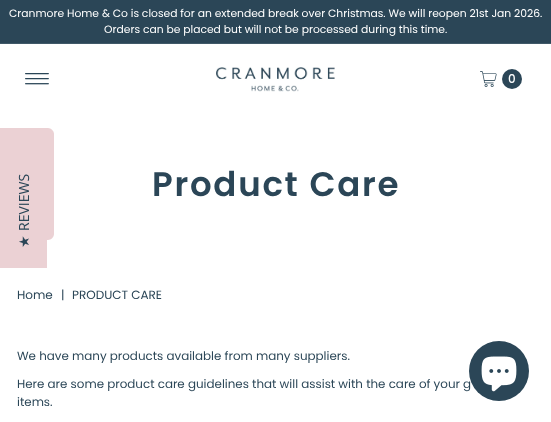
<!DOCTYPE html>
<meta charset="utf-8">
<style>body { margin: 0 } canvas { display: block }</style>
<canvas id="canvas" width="551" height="422"></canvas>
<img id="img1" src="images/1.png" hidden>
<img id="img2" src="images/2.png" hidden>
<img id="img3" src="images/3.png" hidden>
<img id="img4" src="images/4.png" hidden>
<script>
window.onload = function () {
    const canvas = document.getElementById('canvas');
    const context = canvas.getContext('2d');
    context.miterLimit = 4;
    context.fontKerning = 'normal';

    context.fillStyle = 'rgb(255, 255, 255)';
    context.fillRect(0, 0, 551, 422);
    context.fillStyle = 'rgb(43, 70, 87)';
    context.fillRect(0, 0, 551, 43);
    context.fillStyle = 'rgb(64, 89, 104)';
    context.fillRect(0, 43, 551, 1);
    context.drawImage(document.getElementById('img1'), 25, 73, 24, 12);
    context.drawImage(document.getElementById('img2'), 216, 67, 119, 25);
    context.drawImage(document.getElementById('img3'), 480, 71, 17, 16);
    context.fillStyle = 'rgb(43, 70, 87)';
    context.beginPath();
    context.arc(512, 79, 10, 0, 2 * Math.PI);
    context.fill();
    context.fillStyle = 'rgb(235, 209, 212)';
    context.beginPath();
    context.moveTo(0, 240);
    context.lineTo(0, 128);
    context.lineTo(48, 128);
    context.bezierCurveTo(51, 128, 54, 131, 54, 134);
    context.lineTo(54, 234);
    context.bezierCurveTo(54, 237, 51, 240, 48, 240);
    context.closePath();
    context.fill();
    context.fillRect(0, 240, 47, 28);
    context.fillStyle = 'rgb(43, 70, 87)';
    context.beginPath();
    context.arc(499, 371, 30, 0, 2 * Math.PI);
    context.fill();
    context.drawImage(document.getElementById('img4'), 481, 356, 36, 36);
    context.font = '10.75px Poppins';
    context.fillStyle = 'rgb(255, 255, 255)';
    context.fillText('Cranmore Home & Co is closed for an extended break over Christmas. We will reopen 21st Jan 2026.', 9, 17);
    context.fillText('Orders can be placed but will not be processed during this time.', 104, 33);
    context.font = '500 12px Poppins';
    context.fillText('0', 508, 83);
    context.letterSpacing = '1.75px';
    context.font = '600 34px Poppins';
    context.fillStyle = 'rgb(43, 70, 87)';
    context.fillText('Product Care', 152, 196);
    context.letterSpacing = '0px';
    context.font = '12px Poppins';
    context.fillText('Home', 17, 299);
    context.fillText('|', 61, 299);
    context.fillText('PRODUCT CARE', 72, 299);
    context.font = '11.9px Poppins';
    context.fillText('We have many products available from many suppliers.', 17, 360);
    context.fillText('Here are some product care guidelines that will assist with the care of your g', 17, 388);
    context.fillText('items.', 17, 406);
    context.font = '14px Open Sans';
    context.save();
    context.translate(29, 231);
    context.rotate(-90 * Math.PI / 180);
    context.fillText('REVIEWS', 0, 0);
    context.restore();
    context.font = '14px DejaVu Sans';
    context.save();
    context.translate(29, 248);
    context.rotate(-90 * Math.PI / 180);
    context.fillText('★', 0, 0);
    context.restore();
};
</script>
